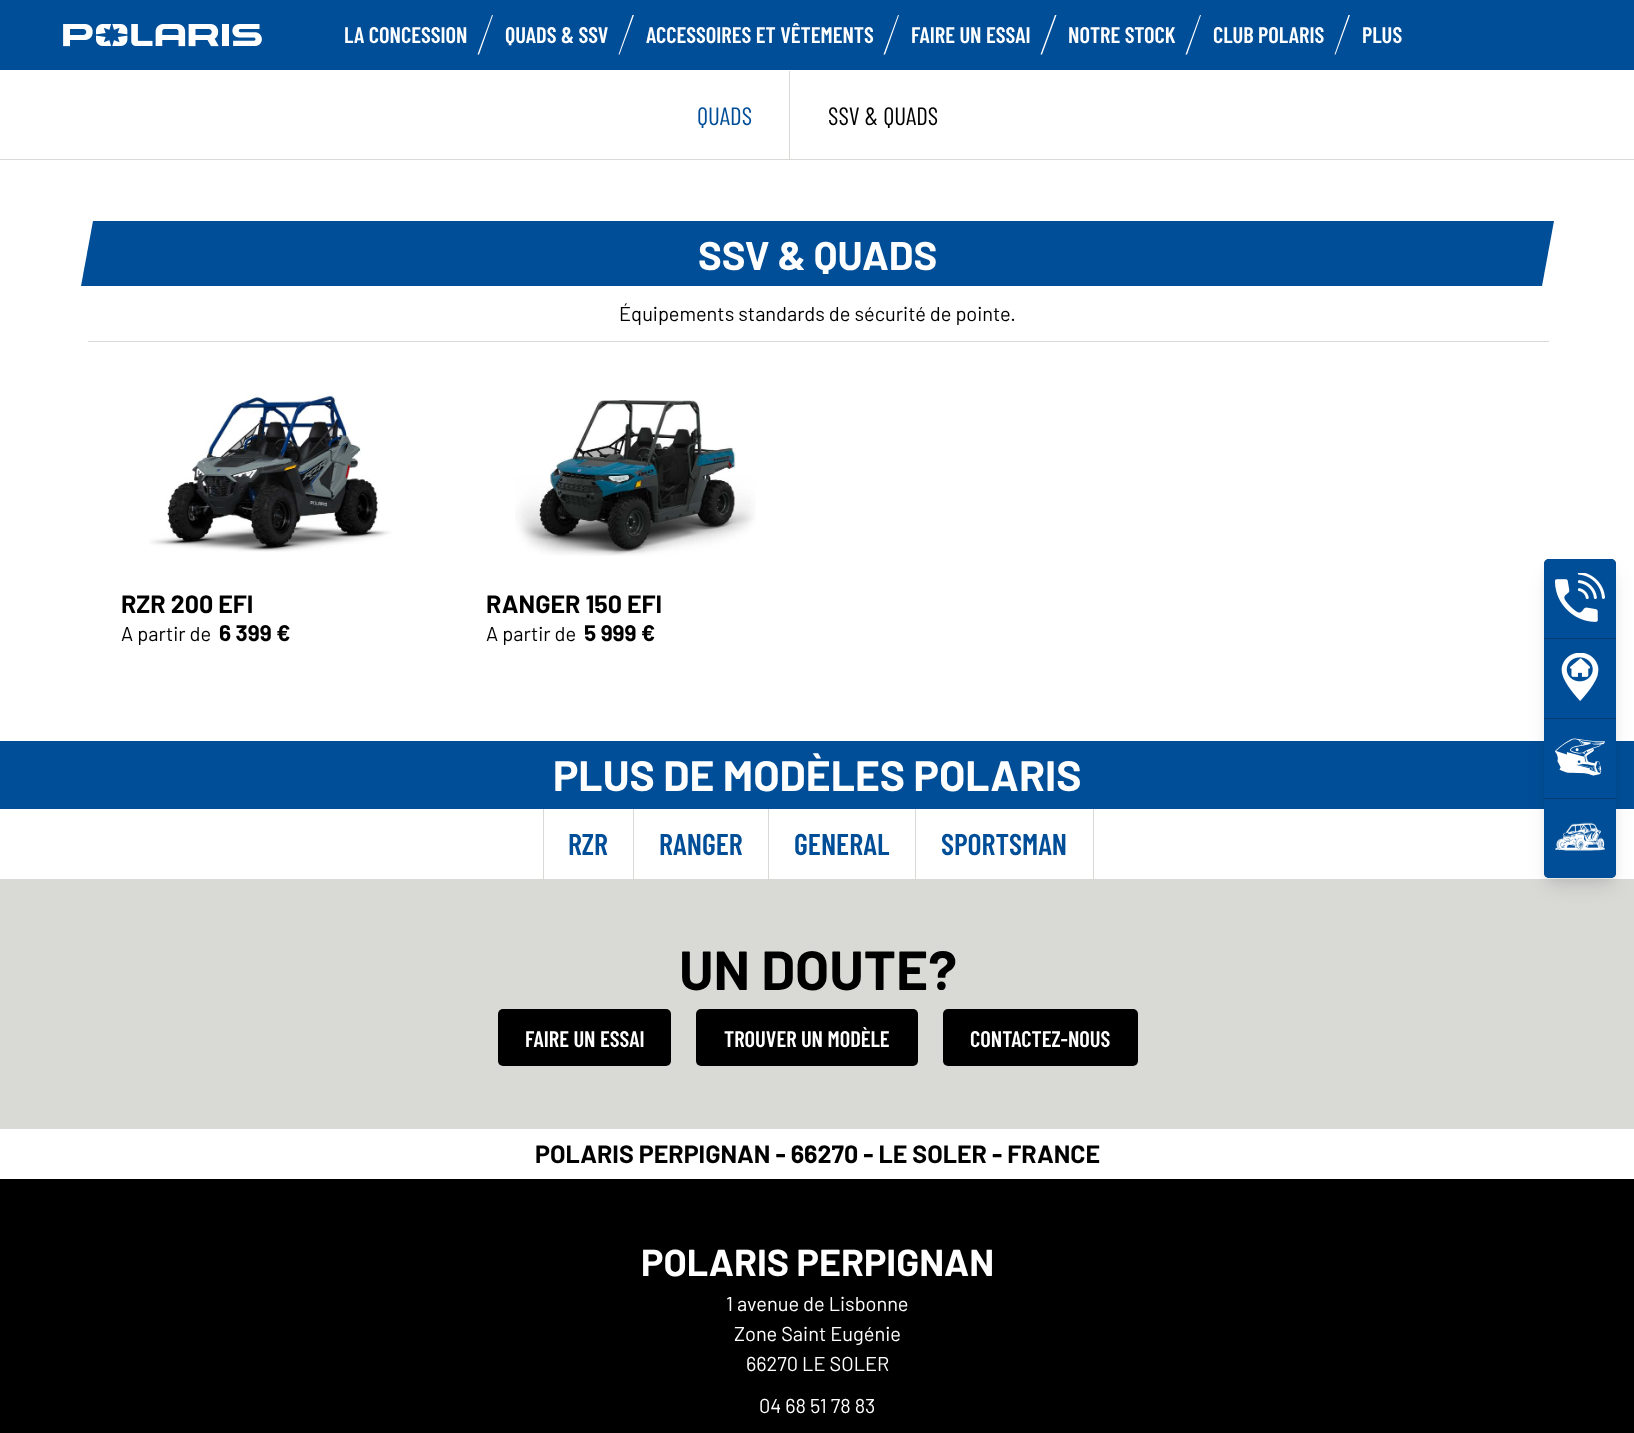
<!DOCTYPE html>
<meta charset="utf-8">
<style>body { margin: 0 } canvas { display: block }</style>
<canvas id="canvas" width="1634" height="1433"></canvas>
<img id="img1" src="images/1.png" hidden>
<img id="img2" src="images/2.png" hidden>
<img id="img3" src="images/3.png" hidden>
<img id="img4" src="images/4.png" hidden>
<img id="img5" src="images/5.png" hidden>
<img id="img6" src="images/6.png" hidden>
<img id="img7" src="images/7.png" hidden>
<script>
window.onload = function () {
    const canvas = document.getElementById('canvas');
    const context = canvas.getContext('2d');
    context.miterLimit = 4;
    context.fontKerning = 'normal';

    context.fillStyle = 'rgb(255, 255, 255)';
    context.fillRect(0, 0, 1634, 1433);
    context.fillStyle = 'rgb(0, 78, 151)';
    context.fillRect(0, 0, 1634, 70);
    context.drawImage(document.getElementById('img1'), 63, 24, 199, 23);
    context.fillStyle = 'rgb(255, 255, 255)';
    context.beginPath();
    context.moveTo(492, 15);
    context.lineTo(493, 15);
    context.lineTo(479, 54.5);
    context.lineTo(477.5, 54.5);
    context.closePath();
    context.fill();
    context.beginPath();
    context.moveTo(632.5, 15);
    context.lineTo(634, 15);
    context.lineTo(619.5, 54.5);
    context.lineTo(618.5, 54.5);
    context.closePath();
    context.fill();
    context.beginPath();
    context.moveTo(898, 15);
    context.lineTo(899, 15);
    context.lineTo(885, 54.5);
    context.lineTo(883.5, 54.5);
    context.closePath();
    context.fill();
    context.beginPath();
    context.moveTo(1055, 15);
    context.lineTo(1056.5, 15);
    context.lineTo(1042, 54.5);
    context.lineTo(1040.5, 54.5);
    context.closePath();
    context.fill();
    context.beginPath();
    context.moveTo(1200, 15);
    context.lineTo(1201, 15);
    context.lineTo(1187, 54.5);
    context.lineTo(1185.5, 54.5);
    context.closePath();
    context.fill();
    context.beginPath();
    context.moveTo(1348.5, 15);
    context.lineTo(1350, 15);
    context.lineTo(1335.5, 54.5);
    context.lineTo(1334.5, 54.5);
    context.closePath();
    context.fill();
    context.fillStyle = 'rgb(217, 217, 214)';
    context.fillRect(0, 159, 1634, 1);
    context.fillRect(789, 71, 1, 88);
    context.fillStyle = 'rgb(0, 78, 151)';
    context.beginPath();
    context.moveTo(93, 221);
    context.lineTo(1554, 221);
    context.lineTo(1542, 286);
    context.lineTo(81, 286);
    context.closePath();
    context.fill();
    context.fillStyle = 'rgb(217, 217, 214)';
    context.fillRect(88, 341, 1461, 1);
    context.drawImage(document.getElementById('img2'), 149, 393, 243, 159);
    context.drawImage(document.getElementById('img3'), 515, 400, 241, 156);
    context.fillStyle = 'rgb(0, 78, 151)';
    context.fillRect(0, 741, 1634, 68);
    context.fillStyle = 'rgb(217, 217, 214)';
    context.fillRect(543, 809, 1, 70);
    context.fillRect(633, 809, 1, 70);
    context.fillRect(768, 809, 1, 70);
    context.fillRect(1093, 809, 1, 70);
    context.fillRect(915, 809, 1, 70);
    context.fillRect(0, 879, 1634, 250);
    context.fillStyle = 'rgb(0, 0, 0)';
    context.beginPath();
    context.roundRect(498, 1009, 173, 57, 5);
    context.fill();
    context.beginPath();
    context.roundRect(696, 1009, 222, 57, 5);
    context.fill();
    context.beginPath();
    context.roundRect(943, 1009, 195, 57, 5);
    context.fill();
    context.fillStyle = 'rgba(0, 0, 0, 0.05)';
    context.filter = 'blur(4px)';
    context.beginPath();
    context.roundRect(1546, 566, 68, 314, 2.5);
    context.fill();
    context.filter = 'none';
    context.fillStyle = 'rgba(0, 0, 0, 0.1)';
    context.filter = 'blur(9.5px)';
    context.beginPath();
    context.roundRect(1548, 575, 65, 311, 1);
    context.fill();
    context.filter = 'none';
    context.fillStyle = 'rgb(0, 57, 111)';
    context.beginPath();
    context.roundRect(1544, 559, 72, 319, 5);
    context.fill();
    context.fillStyle = 'rgb(0, 78, 151)';
    context.beginPath();
    context.roundRect(1544, 559, 72, 79, [5, 5, 0, 0]);
    context.fill();
    context.drawImage(document.getElementById('img4'), 1555, 573, 50, 49);
    context.fillRect(1544, 639, 72, 79);
    context.drawImage(document.getElementById('img5'), 1561, 653, 38, 48);
    context.fillRect(1544, 719, 72, 79);
    context.drawImage(document.getElementById('img6'), 1555, 738, 50, 38);
    context.beginPath();
    context.roundRect(1544, 799, 72, 79, [0, 0, 5, 5]);
    context.fill();
    context.drawImage(document.getElementById('img7'), 1555, 822, 50, 29);
    context.fillStyle = 'rgb(0, 0, 0)';
    context.fillRect(0, 1179, 1634, 254);
    context.font = '600 22.5px Barlow Condensed';
    context.fillStyle = 'rgb(255, 255, 255)';
    context.fillText('LA CONCESSION', 344, 43);
    context.fillText('QUADS & SSV', 505, 43);
    context.fillText('ACCESSOIRES ET VÊTEMENTS', 646, 43);
    context.fillText('FAIRE UN ESSAI', 911, 43);
    context.fillText('NOTRE STOCK', 1068, 43);
    context.fillText('CLUB POLARIS', 1213, 43);
    context.fillText('PLUS', 1362, 43);
    context.font = '25px Barlow Condensed';
    context.fillStyle = 'rgb(0, 78, 151)';
    context.fillText('QUADS', 697, 125);
    context.fillStyle = 'rgb(0, 0, 0)';
    context.fillText('SSV & QUADS', 828, 125);
    context.font = 'bold 40px Barlow';
    context.fillStyle = 'rgb(255, 255, 255)';
    context.fillText('SSV & QUADS', 698, 270);
    context.font = '20px Barlow';
    context.fillStyle = 'rgb(0, 0, 0)';
    context.fillText('Équipements standards de sécurité de pointe.', 619, 321);
    context.font = 'bold 25px Barlow';
    context.fillText('RZR 200 EFI', 121, 613);
    context.font = '20px Barlow';
    context.fillText('A partir de', 121, 641);
    context.font = 'bold 22.5px Barlow';
    context.fillText('6 399 €', 219, 641);
    context.font = 'bold 25px Barlow';
    context.fillText('RANGER 150 EFI', 486, 613);
    context.font = '20px Barlow';
    context.fillText('A partir de', 486, 641);
    context.font = 'bold 22.5px Barlow';
    context.fillText('5 999 €', 584, 641);
    context.font = 'bold 42.5px Barlow';
    context.fillStyle = 'rgb(255, 255, 255)';
    context.fillText('PLUS DE MODÈLES POLARIS', 553, 791);
    context.font = '600 30px Barlow Condensed';
    context.fillStyle = 'rgb(0, 78, 151)';
    context.fillText('RZR', 568, 855);
    context.fillText('RANGER', 659, 855);
    context.fillText('GENERAL', 794, 855);
    context.fillText('SPORTSMAN', 941, 855);
    context.font = 'bold 55px Barlow';
    context.fillStyle = 'rgb(0, 0, 0)';
    context.fillText('UN DOUTE?', 679, 990);
    context.font = '600 22.5px Barlow Condensed';
    context.fillStyle = 'rgb(255, 255, 255)';
    context.fillText('FAIRE UN ESSAI', 525, 1047);
    context.fillText('TROUVER UN MODÈLE', 724, 1047);
    context.fillText('CONTACTEZ-NOUS', 970, 1047);
    context.font = 'bold 25px Barlow';
    context.fillStyle = 'rgb(0, 0, 0)';
    context.fillText('POLARIS PERPIGNAN - 66270 - LE SOLER - FRANCE', 535, 1163);
    context.font = 'bold 37.5px Barlow';
    context.fillStyle = 'rgb(255, 255, 255)';
    context.fillText('POLARIS PERPIGNAN', 641, 1276);
    context.font = '20px Barlow';
    context.fillText('1 avenue de Lisbonne', 726, 1311);
    context.fillText('Zone Saint Eugénie', 734, 1341);
    context.fillText('66270 LE SOLER', 746, 1371);
    context.fillText('04 68 51 78 83', 759, 1413);
};
</script>
